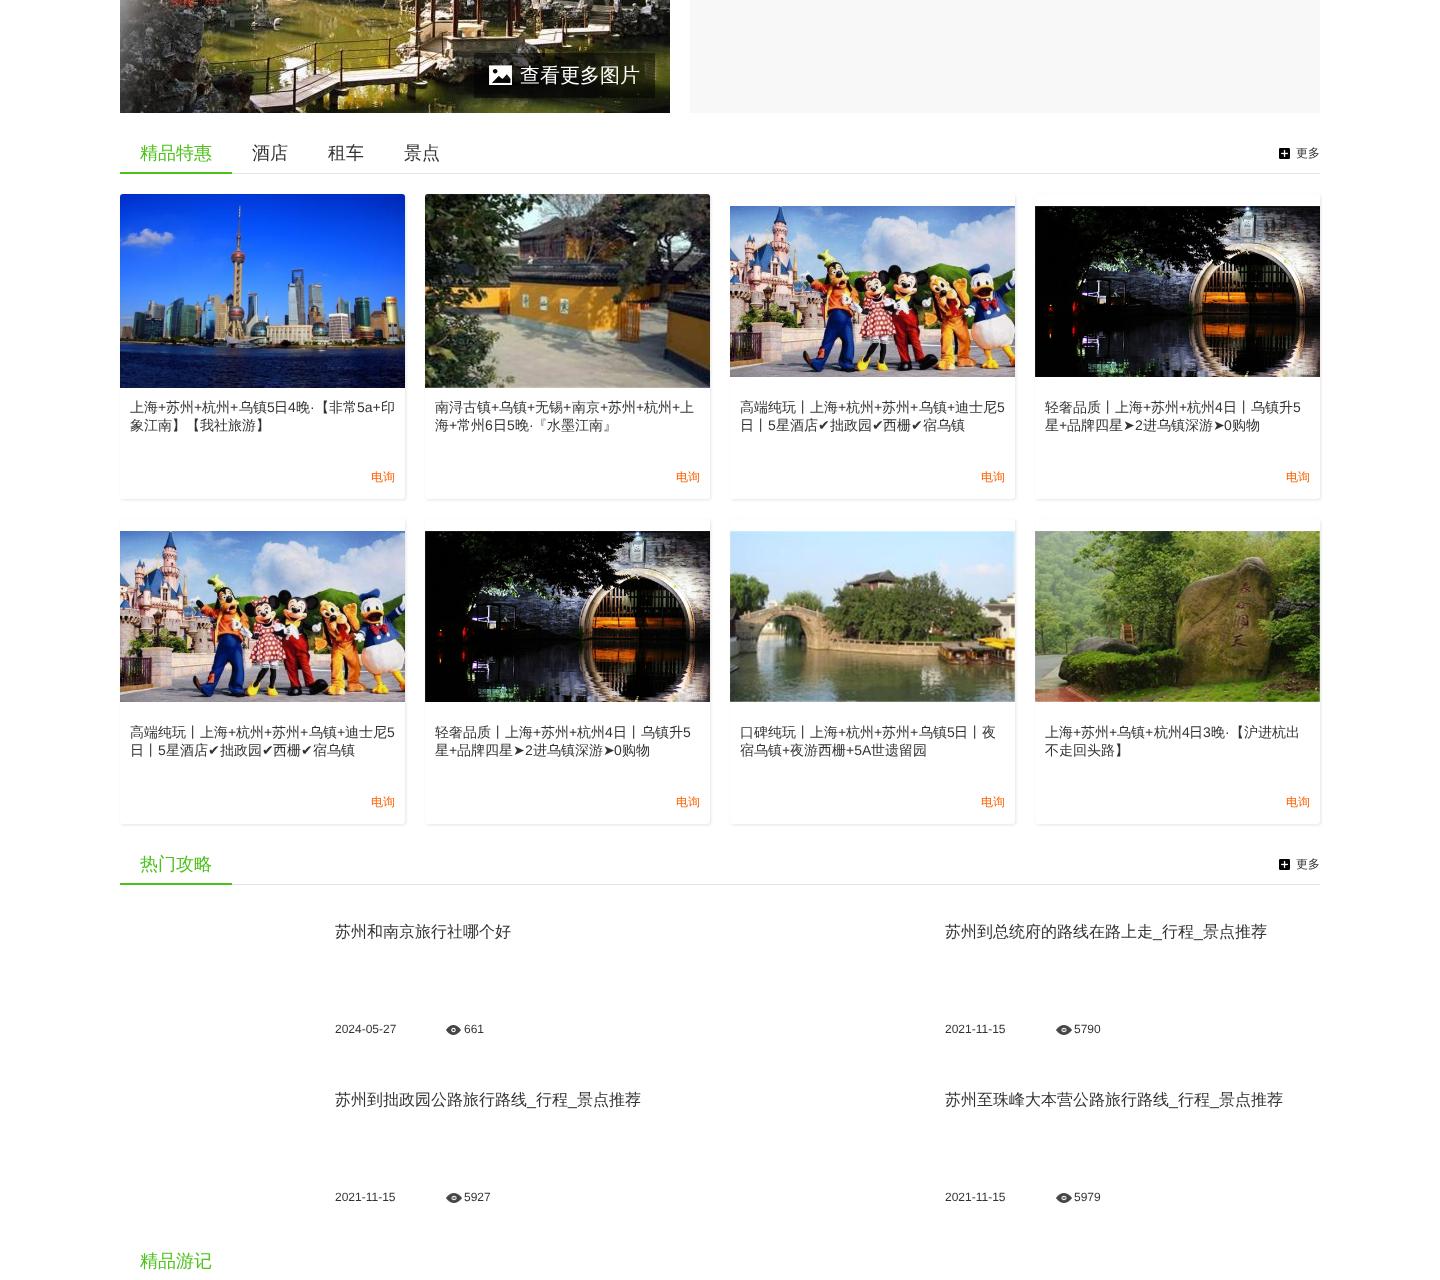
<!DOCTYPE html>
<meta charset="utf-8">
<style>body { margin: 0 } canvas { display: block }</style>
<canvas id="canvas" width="1440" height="1280"></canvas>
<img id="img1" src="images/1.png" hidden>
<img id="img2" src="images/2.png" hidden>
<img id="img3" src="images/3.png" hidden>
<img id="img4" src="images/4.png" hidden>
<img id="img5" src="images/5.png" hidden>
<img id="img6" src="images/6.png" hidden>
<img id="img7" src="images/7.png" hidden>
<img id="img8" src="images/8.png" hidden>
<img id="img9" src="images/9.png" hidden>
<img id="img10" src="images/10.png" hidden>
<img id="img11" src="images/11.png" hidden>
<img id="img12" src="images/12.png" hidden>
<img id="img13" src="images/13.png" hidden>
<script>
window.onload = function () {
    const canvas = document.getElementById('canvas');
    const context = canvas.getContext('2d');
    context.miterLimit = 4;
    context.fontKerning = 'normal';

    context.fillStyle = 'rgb(255, 255, 255)';
    context.fillRect(0, 0, 1440, 1280);
    context.drawImage(document.getElementById('img1'), 120, 0, 550, 113);
    context.fillStyle = 'rgba(0, 0, 0, 0.5)';
    context.fillRect(474, 53, 181, 45);
    context.drawImage(document.getElementById('img2'), 489, 65, 23, 20);
    context.fillStyle = 'rgb(249, 248, 248)';
    context.fillRect(690, 0, 630, 113);
    context.fillStyle = 'rgb(228, 228, 228)';
    context.fillRect(232, 173, 1088, 1);
    context.fillStyle = 'rgb(77, 194, 27)';
    context.fillRect(120, 172, 112, 2);
    context.drawImage(document.getElementById('img3'), 1279, 148, 11, 11);
    context.fillStyle = 'rgb(229, 229, 229)';
    context.filter = 'blur(1.5px)';
    context.beginPath();
    context.roundRect(121, 195, 285, 305, 3);
    context.fill();
    context.filter = 'none';
    context.fillStyle = 'rgb(255, 255, 255)';
    context.beginPath();
    context.roundRect(120, 194, 285, 305, 3);
    context.fill();
    context.drawImage(document.getElementById('img4'), 120, 194, 285, 194);
    context.fillStyle = 'rgb(229, 229, 229)';
    context.filter = 'blur(1.5px)';
    context.beginPath();
    context.roundRect(426, 195, 285, 305, 3);
    context.fill();
    context.filter = 'none';
    context.fillStyle = 'rgb(255, 255, 255)';
    context.beginPath();
    context.roundRect(425, 194, 285, 305, 3);
    context.fill();
    context.drawImage(document.getElementById('img5'), 425, 194, 285, 194);
    context.fillStyle = 'rgb(229, 229, 229)';
    context.filter = 'blur(1.5px)';
    context.beginPath();
    context.roundRect(731, 195, 285, 305, 3);
    context.fill();
    context.filter = 'none';
    context.fillStyle = 'rgb(255, 255, 255)';
    context.beginPath();
    context.roundRect(730, 194, 285, 305, 3);
    context.fill();
    context.drawImage(document.getElementById('img6'), 730, 206, 285, 171);
    context.fillStyle = 'rgb(229, 229, 229)';
    context.filter = 'blur(1.5px)';
    context.beginPath();
    context.roundRect(1036, 195, 285, 305, 3);
    context.fill();
    context.filter = 'none';
    context.fillStyle = 'rgb(255, 255, 255)';
    context.beginPath();
    context.roundRect(1035, 194, 285, 305, 3);
    context.fill();
    context.drawImage(document.getElementById('img7'), 1035, 206, 285, 171);
    context.fillStyle = 'rgb(229, 229, 229)';
    context.filter = 'blur(1.5px)';
    context.beginPath();
    context.roundRect(121, 520, 285, 305, 3);
    context.fill();
    context.filter = 'none';
    context.fillStyle = 'rgb(255, 255, 255)';
    context.beginPath();
    context.roundRect(120, 519, 285, 305, 3);
    context.fill();
    context.drawImage(document.getElementById('img8'), 120, 531, 285, 171);
    context.fillStyle = 'rgb(229, 229, 229)';
    context.filter = 'blur(1.5px)';
    context.beginPath();
    context.roundRect(426, 520, 285, 305, 3);
    context.fill();
    context.filter = 'none';
    context.fillStyle = 'rgb(255, 255, 255)';
    context.beginPath();
    context.roundRect(425, 519, 285, 305, 3);
    context.fill();
    context.drawImage(document.getElementById('img9'), 425, 531, 285, 171);
    context.fillStyle = 'rgb(229, 229, 229)';
    context.filter = 'blur(1.5px)';
    context.beginPath();
    context.roundRect(731, 520, 285, 305, 3);
    context.fill();
    context.filter = 'none';
    context.fillStyle = 'rgb(255, 255, 255)';
    context.beginPath();
    context.roundRect(730, 519, 285, 305, 3);
    context.fill();
    context.drawImage(document.getElementById('img10'), 730, 531, 285, 171);
    context.fillStyle = 'rgb(229, 229, 229)';
    context.filter = 'blur(1.5px)';
    context.beginPath();
    context.roundRect(1036, 520, 285, 305, 3);
    context.fill();
    context.filter = 'none';
    context.fillStyle = 'rgb(255, 255, 255)';
    context.beginPath();
    context.roundRect(1035, 519, 285, 305, 3);
    context.fill();
    context.drawImage(document.getElementById('img11'), 1035, 531, 285, 171);
    context.fillStyle = 'rgb(228, 228, 228)';
    context.fillRect(232, 884, 1088, 1);
    context.fillStyle = 'rgb(77, 194, 27)';
    context.fillRect(120, 883, 112, 2);
    context.drawImage(document.getElementById('img3'), 1279, 859, 11, 11);
    context.drawImage(document.getElementById('img12'), 446, 1025, 15, 10);
    context.drawImage(document.getElementById('img13'), 1056, 1025, 16, 10);
    context.drawImage(document.getElementById('img13'), 446, 1193, 16, 10);
    context.drawImage(document.getElementById('img13'), 1056, 1193, 16, 10);
    context.font = '500 20px WenQuanYi Zen Hei';
    context.fillStyle = 'rgb(255, 255, 255)';
    context.fillText('查看更多图片', 520, 82);
    context.font = '500 18px WenQuanYi Zen Hei';
    context.fillStyle = 'rgb(77, 194, 27)';
    context.fillText('精品特惠', 140, 159);
    context.fillStyle = 'rgb(51, 51, 51)';
    context.fillText('酒店', 252, 159);
    context.fillText('租车', 328, 159);
    context.fillText('景点', 404, 159);
    context.font = '500 12px WenQuanYi Zen Hei';
    context.fillText('更多', 1296, 157);
    context.font = '500 14px WenQuanYi Zen Hei';
    context.fillText('上海', 130, 412);
    context.font = '14px Liberation Sans';
    context.fillText('+', 158, 412);
    context.font = '500 14px WenQuanYi Zen Hei';
    context.fillText('苏州', 166, 412);
    context.font = '14px Liberation Sans';
    context.fillText('+', 194, 412);
    context.font = '500 14px WenQuanYi Zen Hei';
    context.fillText('杭州', 202, 412);
    context.font = '14px Liberation Sans';
    context.fillText('+', 230, 412);
    context.font = '500 14px WenQuanYi Zen Hei';
    context.fillText('乌镇', 239, 412);
    context.font = '14px Liberation Sans';
    context.fillText('5', 267, 412);
    context.font = '500 14px WenQuanYi Zen Hei';
    context.fillText('日', 274, 412);
    context.font = '14px Liberation Sans';
    context.fillText('4', 288, 412);
    context.font = '500 14px WenQuanYi Zen Hei';
    context.fillText('晚', 296, 412);
    context.font = '14px Liberation Sans';
    context.fillText('·', 310, 412);
    context.font = '500 14px WenQuanYi Zen Hei';
    context.fillText('【非常', 315, 412);
    context.font = '14px Liberation Sans';
    context.fillText('5a+', 357, 412);
    context.font = '500 14px WenQuanYi Zen Hei';
    context.fillText('印', 381, 412);
    context.fillText('象江南】【我社旅游】', 130, 430);
    context.font = '500 12px WenQuanYi Zen Hei';
    context.fillStyle = 'rgb(252, 96, 0)';
    context.fillText('电询', 371, 481);
    context.font = '500 14px WenQuanYi Zen Hei';
    context.fillStyle = 'rgb(51, 51, 51)';
    context.fillText('南浔古镇', 435, 412);
    context.font = '14px Liberation Sans';
    context.fillText('+', 491, 412);
    context.font = '500 14px WenQuanYi Zen Hei';
    context.fillText('乌镇', 499, 412);
    context.font = '14px Liberation Sans';
    context.fillText('+', 527, 412);
    context.font = '500 14px WenQuanYi Zen Hei';
    context.fillText('无锡', 535, 412);
    context.font = '14px Liberation Sans';
    context.fillText('+', 563, 412);
    context.font = '500 14px WenQuanYi Zen Hei';
    context.fillText('南京', 572, 412);
    context.font = '14px Liberation Sans';
    context.fillText('+', 600, 412);
    context.font = '500 14px WenQuanYi Zen Hei';
    context.fillText('苏州', 608, 412);
    context.font = '14px Liberation Sans';
    context.fillText('+', 636, 412);
    context.font = '500 14px WenQuanYi Zen Hei';
    context.fillText('杭州', 644, 412);
    context.font = '14px Liberation Sans';
    context.fillText('+', 672, 412);
    context.font = '500 14px WenQuanYi Zen Hei';
    context.fillText('上', 680, 412);
    context.fillText('海', 435, 430);
    context.font = '14px Liberation Sans';
    context.fillText('+', 449, 430);
    context.font = '500 14px WenQuanYi Zen Hei';
    context.fillText('常州', 457, 430);
    context.font = '14px Liberation Sans';
    context.fillText('6', 485, 430);
    context.font = '500 14px WenQuanYi Zen Hei';
    context.fillText('日', 493, 430);
    context.font = '14px Liberation Sans';
    context.fillText('5', 507, 430);
    context.font = '500 14px WenQuanYi Zen Hei';
    context.fillText('晚', 515, 430);
    context.font = '14px Liberation Sans';
    context.fillText('·', 529, 430);
    context.font = '500 14px WenQuanYi Zen Hei';
    context.fillText('『水墨江南』', 533, 430);
    context.font = '500 12px WenQuanYi Zen Hei';
    context.fillStyle = 'rgb(252, 96, 0)';
    context.fillText('电询', 676, 481);
    context.font = '500 14px WenQuanYi Zen Hei';
    context.fillStyle = 'rgb(51, 51, 51)';
    context.fillText('高端纯玩丨上海', 740, 412);
    context.font = '14px Liberation Sans';
    context.fillText('+', 838, 412);
    context.font = '500 14px WenQuanYi Zen Hei';
    context.fillText('杭州', 846, 412);
    context.font = '14px Liberation Sans';
    context.fillText('+', 874, 412);
    context.font = '500 14px WenQuanYi Zen Hei';
    context.fillText('苏州', 882, 412);
    context.font = '14px Liberation Sans';
    context.fillText('+', 910, 412);
    context.font = '500 14px WenQuanYi Zen Hei';
    context.fillText('乌镇', 919, 412);
    context.font = '14px Liberation Sans';
    context.fillText('+', 947, 412);
    context.font = '500 14px WenQuanYi Zen Hei';
    context.fillText('迪士尼', 955, 412);
    context.font = '14px Liberation Sans';
    context.fillText('5', 997, 412);
    context.font = '500 14px WenQuanYi Zen Hei';
    context.fillText('日丨', 740, 430);
    context.font = '14px Liberation Sans';
    context.fillText('5', 768, 430);
    context.font = '500 14px WenQuanYi Zen Hei';
    context.fillText('星酒店', 776, 430);
    context.font = '14px DejaVu Sans';
    context.fillText('✔', 818, 430);
    context.font = '500 14px WenQuanYi Zen Hei';
    context.fillText('拙政园', 830, 430);
    context.font = '14px DejaVu Sans';
    context.fillText('✔', 872, 430);
    context.font = '500 14px WenQuanYi Zen Hei';
    context.fillText('西栅', 883, 430);
    context.font = '14px DejaVu Sans';
    context.fillText('✔', 911, 430);
    context.font = '500 14px WenQuanYi Zen Hei';
    context.fillText('宿乌镇', 923, 430);
    context.font = '500 12px WenQuanYi Zen Hei';
    context.fillStyle = 'rgb(252, 96, 0)';
    context.fillText('电询', 981, 481);
    context.font = '500 14px WenQuanYi Zen Hei';
    context.fillStyle = 'rgb(51, 51, 51)';
    context.fillText('轻奢品质丨上海', 1045, 412);
    context.font = '14px Liberation Sans';
    context.fillText('+', 1143, 412);
    context.font = '500 14px WenQuanYi Zen Hei';
    context.fillText('苏州', 1151, 412);
    context.font = '14px Liberation Sans';
    context.fillText('+', 1179, 412);
    context.font = '500 14px WenQuanYi Zen Hei';
    context.fillText('杭州', 1187, 412);
    context.font = '14px Liberation Sans';
    context.fillText('4', 1215, 412);
    context.font = '500 14px WenQuanYi Zen Hei';
    context.fillText('日丨乌镇升', 1223, 412);
    context.font = '14px Liberation Sans';
    context.fillText('5', 1293, 412);
    context.font = '500 14px WenQuanYi Zen Hei';
    context.fillText('星', 1045, 430);
    context.font = '14px Liberation Sans';
    context.fillText('+', 1059, 430);
    context.font = '500 14px WenQuanYi Zen Hei';
    context.fillText('品牌四星', 1067, 430);
    context.font = '14px DejaVu Sans';
    context.fillText('➤', 1123, 430);
    context.font = '14px Liberation Sans';
    context.fillText('2', 1135, 430);
    context.font = '500 14px WenQuanYi Zen Hei';
    context.fillText('进乌镇深游', 1143, 430);
    context.font = '14px DejaVu Sans';
    context.fillText('➤', 1213, 430);
    context.font = '14px Liberation Sans';
    context.fillText('0', 1224, 430);
    context.font = '500 14px WenQuanYi Zen Hei';
    context.fillText('购物', 1232, 430);
    context.font = '500 12px WenQuanYi Zen Hei';
    context.fillStyle = 'rgb(252, 96, 0)';
    context.fillText('电询', 1286, 481);
    context.font = '500 14px WenQuanYi Zen Hei';
    context.fillStyle = 'rgb(51, 51, 51)';
    context.fillText('高端纯玩丨上海', 130, 737);
    context.font = '14px Liberation Sans';
    context.fillText('+', 228, 737);
    context.font = '500 14px WenQuanYi Zen Hei';
    context.fillText('杭州', 236, 737);
    context.font = '14px Liberation Sans';
    context.fillText('+', 264, 737);
    context.font = '500 14px WenQuanYi Zen Hei';
    context.fillText('苏州', 272, 737);
    context.font = '14px Liberation Sans';
    context.fillText('+', 300, 737);
    context.font = '500 14px WenQuanYi Zen Hei';
    context.fillText('乌镇', 309, 737);
    context.font = '14px Liberation Sans';
    context.fillText('+', 337, 737);
    context.font = '500 14px WenQuanYi Zen Hei';
    context.fillText('迪士尼', 345, 737);
    context.font = '14px Liberation Sans';
    context.fillText('5', 387, 737);
    context.font = '500 14px WenQuanYi Zen Hei';
    context.fillText('日丨', 130, 755);
    context.font = '14px Liberation Sans';
    context.fillText('5', 158, 755);
    context.font = '500 14px WenQuanYi Zen Hei';
    context.fillText('星酒店', 166, 755);
    context.font = '14px DejaVu Sans';
    context.fillText('✔', 208, 755);
    context.font = '500 14px WenQuanYi Zen Hei';
    context.fillText('拙政园', 220, 755);
    context.font = '14px DejaVu Sans';
    context.fillText('✔', 262, 755);
    context.font = '500 14px WenQuanYi Zen Hei';
    context.fillText('西栅', 273, 755);
    context.font = '14px DejaVu Sans';
    context.fillText('✔', 301, 755);
    context.font = '500 14px WenQuanYi Zen Hei';
    context.fillText('宿乌镇', 313, 755);
    context.font = '500 12px WenQuanYi Zen Hei';
    context.fillStyle = 'rgb(252, 96, 0)';
    context.fillText('电询', 371, 806);
    context.font = '500 14px WenQuanYi Zen Hei';
    context.fillStyle = 'rgb(51, 51, 51)';
    context.fillText('轻奢品质丨上海', 435, 737);
    context.font = '14px Liberation Sans';
    context.fillText('+', 533, 737);
    context.font = '500 14px WenQuanYi Zen Hei';
    context.fillText('苏州', 541, 737);
    context.font = '14px Liberation Sans';
    context.fillText('+', 569, 737);
    context.font = '500 14px WenQuanYi Zen Hei';
    context.fillText('杭州', 577, 737);
    context.font = '14px Liberation Sans';
    context.fillText('4', 605, 737);
    context.font = '500 14px WenQuanYi Zen Hei';
    context.fillText('日丨乌镇升', 613, 737);
    context.font = '14px Liberation Sans';
    context.fillText('5', 683, 737);
    context.font = '500 14px WenQuanYi Zen Hei';
    context.fillText('星', 435, 755);
    context.font = '14px Liberation Sans';
    context.fillText('+', 449, 755);
    context.font = '500 14px WenQuanYi Zen Hei';
    context.fillText('品牌四星', 457, 755);
    context.font = '14px DejaVu Sans';
    context.fillText('➤', 513, 755);
    context.font = '14px Liberation Sans';
    context.fillText('2', 525, 755);
    context.font = '500 14px WenQuanYi Zen Hei';
    context.fillText('进乌镇深游', 533, 755);
    context.font = '14px DejaVu Sans';
    context.fillText('➤', 603, 755);
    context.font = '14px Liberation Sans';
    context.fillText('0', 614, 755);
    context.font = '500 14px WenQuanYi Zen Hei';
    context.fillText('购物', 622, 755);
    context.font = '500 12px WenQuanYi Zen Hei';
    context.fillStyle = 'rgb(252, 96, 0)';
    context.fillText('电询', 676, 806);
    context.font = '500 14px WenQuanYi Zen Hei';
    context.fillStyle = 'rgb(51, 51, 51)';
    context.fillText('口碑纯玩丨上海', 740, 737);
    context.font = '14px Liberation Sans';
    context.fillText('+', 838, 737);
    context.font = '500 14px WenQuanYi Zen Hei';
    context.fillText('杭州', 846, 737);
    context.font = '14px Liberation Sans';
    context.fillText('+', 874, 737);
    context.font = '500 14px WenQuanYi Zen Hei';
    context.fillText('苏州', 882, 737);
    context.font = '14px Liberation Sans';
    context.fillText('+', 910, 737);
    context.font = '500 14px WenQuanYi Zen Hei';
    context.fillText('乌镇', 919, 737);
    context.font = '14px Liberation Sans';
    context.fillText('5', 947, 737);
    context.font = '500 14px WenQuanYi Zen Hei';
    context.fillText('日丨夜', 954, 737);
    context.fillText('宿乌镇', 740, 755);
    context.font = '14px Liberation Sans';
    context.fillText('+', 782, 755);
    context.font = '500 14px WenQuanYi Zen Hei';
    context.fillText('夜游西栅', 790, 755);
    context.font = '14px Liberation Sans';
    context.fillText('+5A', 846, 755);
    context.font = '500 14px WenQuanYi Zen Hei';
    context.fillText('世遗留园', 871, 755);
    context.font = '500 12px WenQuanYi Zen Hei';
    context.fillStyle = 'rgb(252, 96, 0)';
    context.fillText('电询', 981, 806);
    context.font = '500 14px WenQuanYi Zen Hei';
    context.fillStyle = 'rgb(51, 51, 51)';
    context.fillText('上海', 1045, 737);
    context.font = '14px Liberation Sans';
    context.fillText('+', 1073, 737);
    context.font = '500 14px WenQuanYi Zen Hei';
    context.fillText('苏州', 1081, 737);
    context.font = '14px Liberation Sans';
    context.fillText('+', 1109, 737);
    context.font = '500 14px WenQuanYi Zen Hei';
    context.fillText('乌镇', 1117, 737);
    context.font = '14px Liberation Sans';
    context.fillText('+', 1145, 737);
    context.font = '500 14px WenQuanYi Zen Hei';
    context.fillText('杭州', 1154, 737);
    context.font = '14px Liberation Sans';
    context.fillText('4', 1182, 737);
    context.font = '500 14px WenQuanYi Zen Hei';
    context.fillText('日', 1189, 737);
    context.font = '14px Liberation Sans';
    context.fillText('3', 1203, 737);
    context.font = '500 14px WenQuanYi Zen Hei';
    context.fillText('晚', 1211, 737);
    context.font = '14px Liberation Sans';
    context.fillText('·', 1225, 737);
    context.font = '500 14px WenQuanYi Zen Hei';
    context.fillText('【沪进杭出', 1230, 737);
    context.fillText('不走回头路】', 1045, 755);
    context.font = '500 12px WenQuanYi Zen Hei';
    context.fillStyle = 'rgb(252, 96, 0)';
    context.fillText('电询', 1286, 806);
    context.font = '500 18px WenQuanYi Zen Hei';
    context.fillStyle = 'rgb(77, 194, 27)';
    context.fillText('热门攻略', 140, 870);
    context.font = '500 12px WenQuanYi Zen Hei';
    context.fillStyle = 'rgb(51, 51, 51)';
    context.fillText('更多', 1296, 868);
    context.font = '500 16px WenQuanYi Zen Hei';
    context.fillText('苏州和南京旅行社哪个好', 335, 937);
    context.font = '12px Liberation Sans';
    context.fillText('2024-05-27', 335, 1033);
    context.fillText('661', 464, 1033);
    context.font = '500 16px WenQuanYi Zen Hei';
    context.fillText('苏州到总统府的路线在路上走', 945, 937);
    context.font = '16px Liberation Sans';
    context.fillText('_', 1153, 937);
    context.font = '500 16px WenQuanYi Zen Hei';
    context.fillText('行程', 1162, 937);
    context.font = '16px Liberation Sans';
    context.fillText('_', 1194, 937);
    context.font = '500 16px WenQuanYi Zen Hei';
    context.fillText('景点推荐', 1203, 937);
    context.font = '12px Liberation Sans';
    context.fillText('2021-11-15', 945, 1033);
    context.fillText('5790', 1074, 1033);
    context.font = '500 16px WenQuanYi Zen Hei';
    context.fillText('苏州到拙政园公路旅行路线', 335, 1105);
    context.font = '16px Liberation Sans';
    context.fillText('_', 527, 1105);
    context.font = '500 16px WenQuanYi Zen Hei';
    context.fillText('行程', 536, 1105);
    context.font = '16px Liberation Sans';
    context.fillText('_', 568, 1105);
    context.font = '500 16px WenQuanYi Zen Hei';
    context.fillText('景点推荐', 577, 1105);
    context.font = '12px Liberation Sans';
    context.fillText('2021-11-15', 335, 1201);
    context.fillText('5927', 464, 1201);
    context.font = '500 16px WenQuanYi Zen Hei';
    context.fillText('苏州至珠峰大本营公路旅行路线', 945, 1105);
    context.font = '16px Liberation Sans';
    context.fillText('_', 1169, 1105);
    context.font = '500 16px WenQuanYi Zen Hei';
    context.fillText('行程', 1178, 1105);
    context.font = '16px Liberation Sans';
    context.fillText('_', 1210, 1105);
    context.font = '500 16px WenQuanYi Zen Hei';
    context.fillText('景点推荐', 1219, 1105);
    context.font = '12px Liberation Sans';
    context.fillText('2021-11-15', 945, 1201);
    context.fillText('5979', 1074, 1201);
    context.font = '500 18px WenQuanYi Zen Hei';
    context.fillStyle = 'rgb(77, 194, 27)';
    context.fillText('精品游记', 140, 1267);
};
</script>
